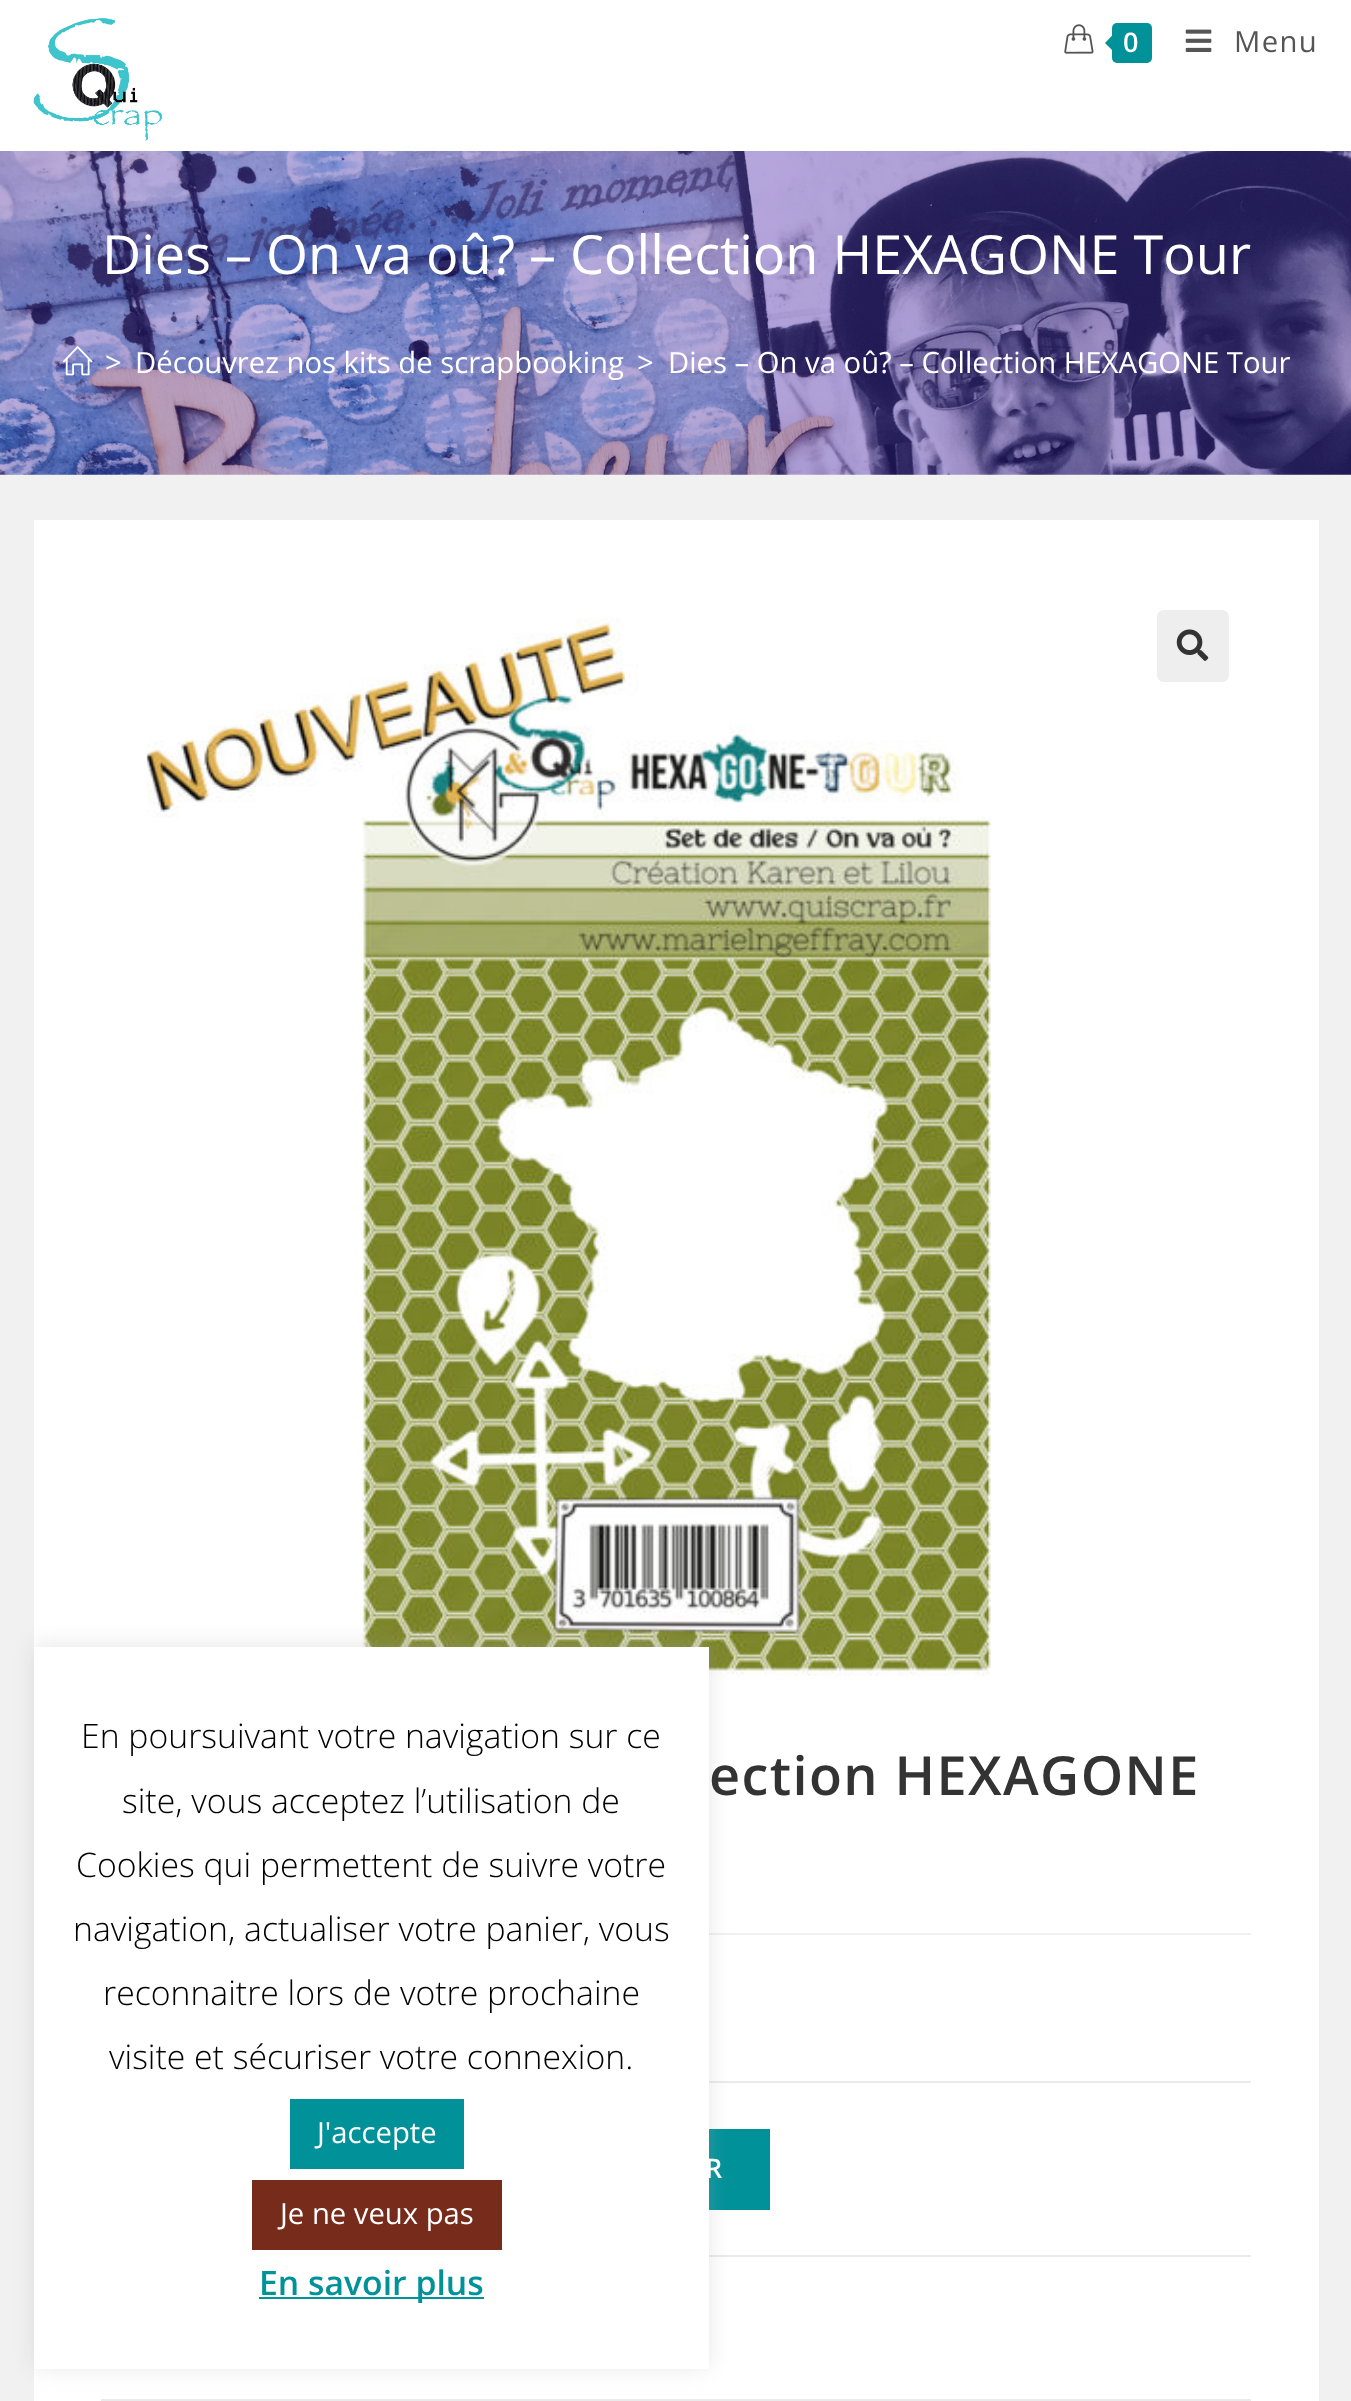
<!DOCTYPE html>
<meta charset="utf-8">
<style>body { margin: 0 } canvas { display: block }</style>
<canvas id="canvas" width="1351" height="2401"></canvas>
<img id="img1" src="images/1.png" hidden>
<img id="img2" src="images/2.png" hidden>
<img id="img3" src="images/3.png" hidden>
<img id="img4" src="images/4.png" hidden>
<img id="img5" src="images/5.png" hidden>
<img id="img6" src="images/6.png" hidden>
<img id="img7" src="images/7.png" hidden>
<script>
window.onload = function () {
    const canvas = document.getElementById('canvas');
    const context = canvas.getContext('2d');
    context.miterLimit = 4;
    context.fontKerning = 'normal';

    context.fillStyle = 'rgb(241, 241, 241)';
    context.fillRect(0, 0, 1351, 2401);
    context.fillStyle = 'rgb(255, 255, 255)';
    context.fillRect(0, 0, 1351, 151);
    context.drawImage(document.getElementById('img1'), 33, 18, 129, 123);
    context.drawImage(document.getElementById('img2'), 1064, 24, 30, 30);
    context.fillStyle = 'rgb(1, 145, 153)';
    context.beginPath();
    context.roundRect(1112, 23, 40, 40, 5);
    context.fill();
    context.beginPath();
    context.moveTo(1116, 31.5);
    context.lineTo(1116, 54);
    context.lineTo(1105, 43);
    context.closePath();
    context.fill();
    context.drawImage(document.getElementById('img3'), 1185, 29, 27, 23);
    context.drawImage(document.getElementById('img4'), 0, 151, 1351, 324);
    context.drawImage(document.getElementById('img5'), 63, 346, 30, 30);
    context.fillStyle = 'rgb(255, 255, 255)';
    context.fillRect(34, 520, 1285, 1881);
    context.drawImage(document.getElementById('img6'), 146, 618, 845, 1058);
    context.fillStyle = 'rgb(238, 238, 238)';
    context.beginPath();
    context.roundRect(1157, 610, 72, 72, 7);
    context.fill();
    context.drawImage(document.getElementById('img7'), 1176, 629, 33, 32);
    context.fillStyle = 'rgb(241, 241, 241)';
    context.fillRect(709, 1933, 542, 2);
    context.fillStyle = 'rgb(234, 234, 234)';
    context.fillRect(709, 2081, 542, 2);
    context.fillRect(709, 2255, 542, 2);
    context.fillStyle = 'rgb(1, 145, 153)';
    context.fillRect(709, 2129, 61, 81);
    context.fillStyle = 'rgb(234, 234, 234)';
    context.fillRect(101, 2399, 1150, 2);
    context.fillStyle = 'rgba(172, 171, 171, 0.3)';
    context.filter = 'blur(11px)';
    context.beginPath();
    context.rect(34, 1645, 675, 722);
    context.fill();
    context.filter = 'none';
    context.fillStyle = 'rgb(255, 255, 255)';
    context.fillRect(34, 1647, 675, 722);
    context.fillStyle = 'rgb(1, 145, 153)';
    context.fillRect(290, 2099, 174, 70);
    context.fillStyle = 'rgb(119, 44, 27)';
    context.fillRect(252, 2180, 250, 70);
    context.fillStyle = 'rgb(1, 145, 153)';
    context.fillRect(259, 2297, 225, 2);
    context.letterSpacing = '1.4px';
    context.font = '600 27px Open Sans';
    context.fillStyle = 'rgb(255, 255, 255)';
    context.fillText('0', 1123, 52);
    context.font = '29.25px Open Sans';
    context.fillStyle = 'rgb(85, 85, 85)';
    context.fillText('Menu', 1234, 52);
    context.letterSpacing = '0px';
    context.font = '54px Open Sans';
    context.fillStyle = 'rgb(255, 255, 255)';
    context.fillText('Dies – On va oû? – Collection HEXAGONE Tour', 102, 274);
    context.font = '29.25px Open Sans';
    context.fillText('>', 105, 373);
    context.fillText('Découvrez nos kits de scrapbooking', 135, 373);
    context.fillText('>', 637, 373);
    context.fillText('Dies – On va oû? – Collection HEXAGONE Tour', 668, 373);
    context.letterSpacing = '1.4px';
    context.font = '600 54px Open Sans';
    context.fillStyle = 'rgb(51, 51, 51)';
    context.fillText('ection HEXAGONE', 709, 1795);
    context.letterSpacing = '3px';
    context.font = '600 27px Open Sans';
    context.fillStyle = 'rgb(255, 255, 255)';
    context.fillText('R', 705, 2178);
    context.letterSpacing = '0px';
    context.font = '300 33.75px Open Sans';
    context.fillStyle = 'rgb(0, 0, 0)';
    context.fillText('En poursuivant votre navigation sur ce', 81, 1748);
    context.fillText('site, vous acceptez l’utilisation de', 122, 1813);
    context.fillText('Cookies qui permettent de suivre votre', 76, 1877);
    context.fillText('navigation, actualiser votre panier, vous', 73, 1941);
    context.fillText('reconnaitre lors de votre prochaine', 103, 2005);
    context.fillText('visite et sécuriser votre connexion.', 109, 2069);
    context.font = '29.25px Open Sans';
    context.fillStyle = 'rgb(255, 255, 255)';
    context.fillText('J\'accepte', 317, 2143);
    context.fillText('Je ne veux pas', 280, 2224);
    context.font = '600 33.75px Open Sans';
    context.fillStyle = 'rgb(1, 145, 153)';
    context.fillText('En savoir plus', 259, 2295);
};
</script>
